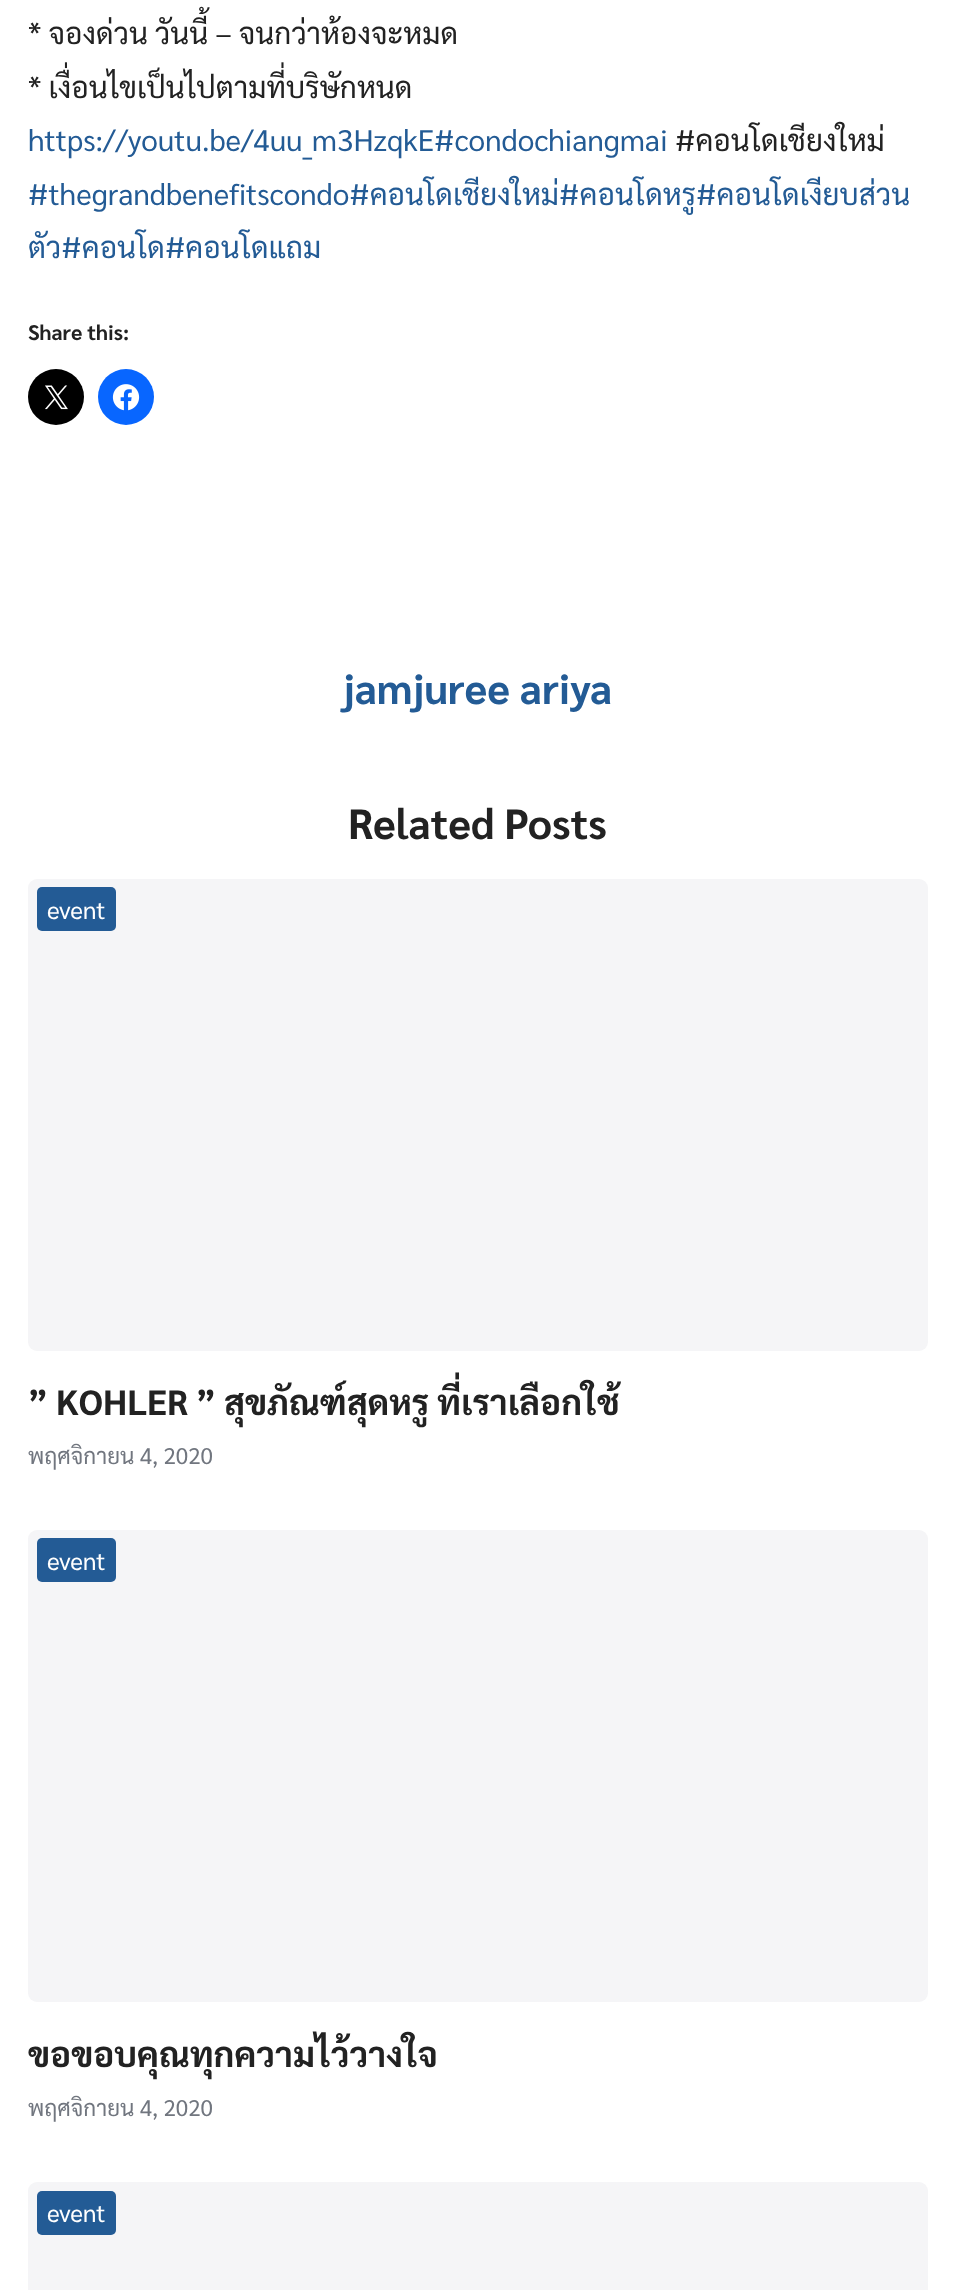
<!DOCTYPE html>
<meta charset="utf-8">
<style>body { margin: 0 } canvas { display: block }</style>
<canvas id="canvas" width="954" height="2290"></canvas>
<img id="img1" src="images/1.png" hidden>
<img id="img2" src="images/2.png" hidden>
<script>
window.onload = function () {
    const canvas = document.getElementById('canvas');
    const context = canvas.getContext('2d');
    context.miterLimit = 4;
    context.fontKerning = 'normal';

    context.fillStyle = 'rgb(255, 255, 255)';
    context.fillRect(0, 0, 954, 2290);
    context.fillStyle = 'rgb(0, 0, 0)';
    context.beginPath();
    context.arc(56, 397, 28, 0, 2 * Math.PI);
    context.fill();
    context.drawImage(document.getElementById('img1'), 45, 385, 23, 25);
    context.fillStyle = 'rgb(8, 102, 255)';
    context.beginPath();
    context.arc(126, 397, 28, 0, 2 * Math.PI);
    context.fill();
    context.drawImage(document.getElementById('img2'), 112, 384, 28, 27);
    context.fillStyle = 'rgb(245, 245, 247)';
    context.beginPath();
    context.roundRect(28, 879, 900, 472, 9);
    context.fill();
    context.fillStyle = 'rgb(35, 91, 149)';
    context.beginPath();
    context.roundRect(37, 887, 79, 44, 5);
    context.fill();
    context.fillStyle = 'rgb(245, 245, 247)';
    context.beginPath();
    context.roundRect(28, 1530, 900, 472, 9);
    context.fill();
    context.fillStyle = 'rgb(35, 91, 149)';
    context.beginPath();
    context.roundRect(37, 1538, 79, 44, 5);
    context.fill();
    context.fillStyle = 'rgb(245, 245, 247)';
    context.beginPath();
    context.roundRect(28, 2182, 900, 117, 9);
    context.fill();
    context.fillStyle = 'rgb(35, 91, 149)';
    context.beginPath();
    context.roundRect(37, 2191, 79, 44, 5);
    context.fill();
    context.font = '29.75px Sarabun';
    context.fillStyle = 'rgb(34, 34, 34)';
    context.fillText('* จองด่วน วันนี้ – จนกว่าห้องจะหมด', 28, 44);
    context.fillText('* เงื่อนไขเป็นไปตามที่บริษักหนด', 28, 98);
    context.fillStyle = 'rgb(35, 91, 149)';
    context.fillText('https://youtu.be/4uu_m3HzqkE#condochiangmai', 28, 151);
    context.fillStyle = 'rgb(34, 34, 34)';
    context.fillText('#คอนโดเชียงใหม่', 675, 151);
    context.fillStyle = 'rgb(35, 91, 149)';
    context.fillText('#thegrandbenefitscondo#คอนโดเชียงใหม่#คอนโดหรู#คอนโดเงียบส่วน', 28, 205);
    context.fillText('ตัว#คอนโด#คอนโดแถม', 28, 258);
    context.font = 'bold 21px Sarabun';
    context.fillStyle = 'rgb(34, 34, 34)';
    context.fillText('Share this:', 28, 340);
    context.font = 'bold 42px Sarabun';
    context.fillStyle = 'rgb(35, 91, 149)';
    context.fillText('jamjuree ariya', 343, 704);
    context.fillStyle = 'rgb(34, 34, 34)';
    context.fillText('Related Posts', 348, 839);
    context.font = '24.5px Sarabun';
    context.fillStyle = 'rgb(255, 255, 255)';
    context.fillText('event', 47, 919);
    context.font = 'bold 35px Sarabun';
    context.fillStyle = 'rgb(34, 34, 34)';
    context.fillText('” KOHLER ” สุขภัณฑ์สุดหรู ที่เราเลือกใช้', 28, 1415);
    context.font = '22.5px Sarabun';
    context.fillStyle = 'rgb(113, 118, 127)';
    context.fillText('พฤศจิกายน 4, 2020', 28, 1464);
    context.font = '24.5px Sarabun';
    context.fillStyle = 'rgb(255, 255, 255)';
    context.fillText('event', 47, 1570);
    context.font = 'bold 35px Sarabun';
    context.fillStyle = 'rgb(34, 34, 34)';
    context.fillText('ขอขอบคุณทุกความไว้วางใจ', 28, 2067);
    context.font = '22.5px Sarabun';
    context.fillStyle = 'rgb(113, 118, 127)';
    context.fillText('พฤศจิกายน 4, 2020', 28, 2116);
    context.font = '24.5px Sarabun';
    context.fillStyle = 'rgb(255, 255, 255)';
    context.fillText('event', 47, 2222);
};
</script>
